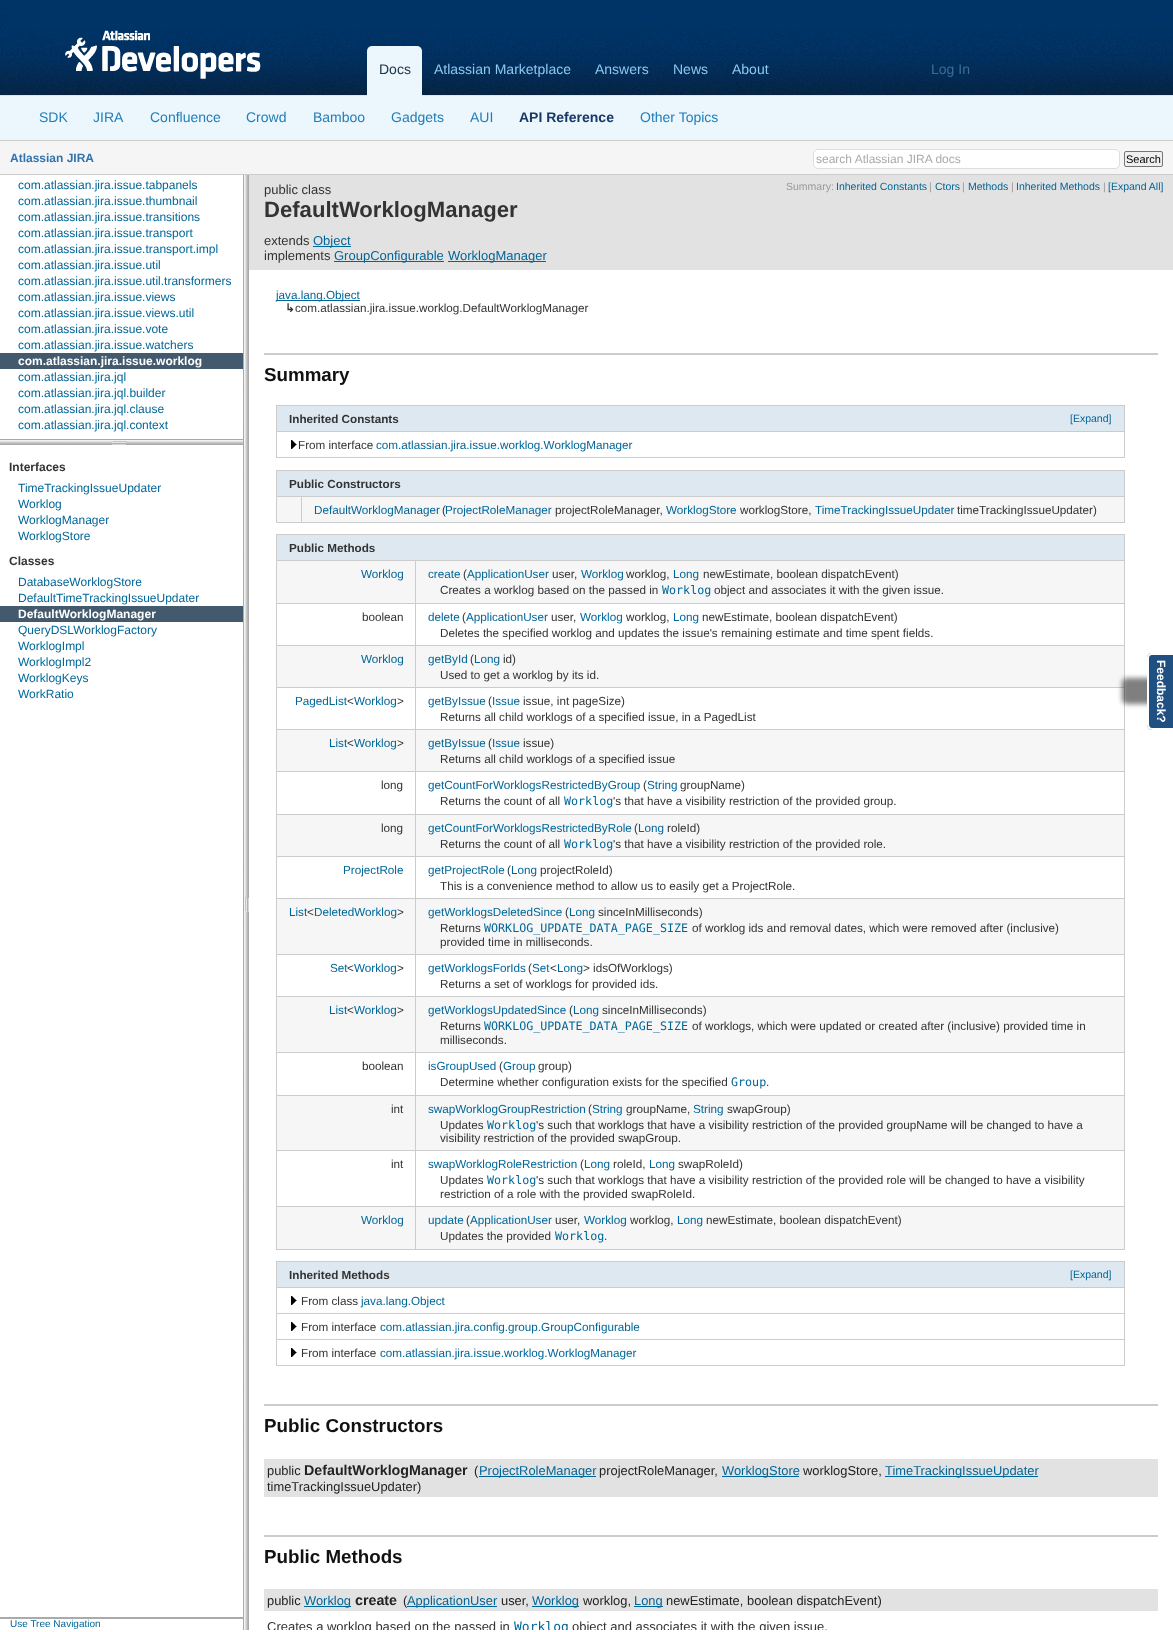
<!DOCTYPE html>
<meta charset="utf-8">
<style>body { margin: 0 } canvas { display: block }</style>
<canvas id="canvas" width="1173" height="1632"></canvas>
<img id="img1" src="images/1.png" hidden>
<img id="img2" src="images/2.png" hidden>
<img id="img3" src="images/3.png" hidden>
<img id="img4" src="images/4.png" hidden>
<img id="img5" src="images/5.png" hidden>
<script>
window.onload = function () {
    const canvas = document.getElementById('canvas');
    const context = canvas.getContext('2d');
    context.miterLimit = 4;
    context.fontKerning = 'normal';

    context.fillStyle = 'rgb(255, 255, 255)';
    context.fillRect(0, 0, 1173, 1632);
    context.fillStyle = 'rgb(236, 246, 253)';
    context.fillRect(0, 96, 1173, 44);
    context.drawImage(document.getElementById('img1'), 0, 0, 1173, 96);
    context.fillStyle = 'rgb(204, 204, 204)';
    context.fillRect(0, 174, 1173, 1);
    context.drawImage(document.getElementById('img2'), 65, 30, 196, 49);
    context.fillStyle = 'rgb(236, 246, 253)';
    context.beginPath();
    context.roundRect(367, 46, 55, 50, [5, 5, 0, 0]);
    context.fill();
    context.fillStyle = 'rgb(245, 245, 245)';
    context.fillRect(0, 141, 1173, 33);
    context.fillStyle = 'rgb(204, 204, 204)';
    context.fillRect(0, 140, 1173, 1);
    context.fillStyle = 'rgb(255, 255, 255)';
    context.beginPath();
    context.roundRect(813.5, 149.5, 306, 19, 4.5);
    context.fill();
    context.strokeStyle = 'rgb(222, 222, 221)';
    context.stroke();
    context.fillStyle = 'rgb(239, 239, 239)';
    context.beginPath();
    context.roundRect(1124.5, 151.5, 38, 15, 1.5);
    context.fill();
    context.strokeStyle = 'rgb(118, 118, 118)';
    context.stroke();
    context.fillStyle = 'rgb(170, 170, 170)';
    context.fillRect(0, 1617, 243, 2);
    context.fillStyle = 'rgb(67, 90, 110)';
    context.fillRect(0, 353, 243, 16);
    context.drawImage(document.getElementById('img3'), 0, 439, 243, 6);
    context.fillRect(0, 606, 243, 16);
    context.drawImage(document.getElementById('img4'), 243, 175, 6, 1455);
    context.fillStyle = 'rgb(226, 226, 226)';
    context.fillRect(249, 175, 924, 95);
    context.fillStyle = 'rgb(0, 102, 153)';
    context.fillRect(313, 246, 38, 1);
    context.fillRect(334, 261, 110, 1);
    context.fillRect(448, 261, 98, 1);
    context.fillRect(276, 300, 84, 1);
    context.fillStyle = 'rgb(204, 204, 204)';
    context.fillRect(264, 353, 894, 2);
    context.fillStyle = 'rgb(222, 232, 241)';
    context.fillRect(277, 406, 847, 25);
    context.fillStyle = 'rgb(204, 204, 204)';
    context.fillRect(276, 405, 849, 1);
    context.fillRect(276, 431, 849, 1);
    context.fillRect(1124, 431, 1, 27);
    context.fillRect(1124, 405, 1, 27);
    context.fillRect(276, 457, 849, 1);
    context.fillRect(276, 431, 1, 27);
    context.fillRect(276, 405, 1, 27);
    context.drawImage(document.getElementById('img5'), 291, 440, 6, 9);
    context.fillStyle = 'rgb(222, 232, 241)';
    context.fillRect(277, 471, 847, 25);
    context.fillStyle = 'rgb(204, 204, 204)';
    context.fillRect(276, 470, 849, 1);
    context.fillRect(301, 496, 824, 1);
    context.fillRect(1124, 496, 1, 27);
    context.fillRect(1124, 470, 1, 27);
    context.fillStyle = 'rgb(246, 246, 246)';
    context.fillRect(277, 497, 847, 25);
    context.fillStyle = 'rgb(204, 204, 204)';
    context.fillRect(301, 522, 824, 1);
    context.fillRect(301, 496, 1, 27);
    context.fillRect(276, 496, 26, 1);
    context.fillRect(276, 522, 26, 1);
    context.fillRect(276, 496, 1, 27);
    context.fillRect(276, 470, 1, 27);
    context.fillStyle = 'rgb(222, 232, 241)';
    context.fillRect(277, 535, 847, 25);
    context.fillStyle = 'rgb(204, 204, 204)';
    context.fillRect(276, 534, 849, 1);
    context.fillRect(415, 560, 710, 1);
    context.fillRect(415, 603, 710, 1);
    context.fillRect(415, 645, 710, 1);
    context.fillRect(415, 687, 710, 1);
    context.fillRect(415, 729, 710, 1);
    context.fillRect(415, 771, 710, 1);
    context.fillRect(415, 814, 710, 1);
    context.fillRect(415, 856, 710, 1);
    context.fillRect(415, 898, 710, 1);
    context.fillRect(415, 954, 710, 1);
    context.fillRect(415, 996, 710, 1);
    context.fillRect(415, 1052, 710, 1);
    context.fillRect(415, 1095, 710, 1);
    context.fillRect(415, 1150, 710, 1);
    context.fillRect(415, 1206, 710, 1);
    context.fillRect(1124, 1206, 1, 44);
    context.fillRect(1124, 1150, 1, 57);
    context.fillRect(1124, 1095, 1, 56);
    context.fillRect(1124, 1052, 1, 44);
    context.fillRect(1124, 996, 1, 57);
    context.fillRect(1124, 954, 1, 43);
    context.fillRect(1124, 898, 1, 57);
    context.fillRect(1124, 856, 1, 43);
    context.fillRect(1124, 814, 1, 43);
    context.fillRect(1124, 771, 1, 44);
    context.fillRect(1124, 729, 1, 43);
    context.fillRect(1124, 687, 1, 43);
    context.fillRect(1124, 645, 1, 43);
    context.fillRect(1124, 603, 1, 43);
    context.fillRect(1124, 560, 1, 44);
    context.fillRect(1124, 534, 1, 27);
    context.fillStyle = 'rgb(246, 246, 246)';
    context.fillRect(277, 561, 847, 42);
    context.fillRect(277, 646, 847, 41);
    context.fillRect(277, 730, 847, 41);
    context.fillRect(277, 815, 847, 41);
    context.fillRect(277, 899, 847, 55);
    context.fillRect(277, 997, 847, 55);
    context.fillRect(277, 1096, 847, 54);
    context.fillRect(277, 1207, 847, 42);
    context.fillStyle = 'rgb(204, 204, 204)';
    context.fillRect(415, 1249, 710, 1);
    context.fillRect(415, 1206, 1, 44);
    context.fillRect(276, 1206, 140, 1);
    context.fillRect(415, 1150, 1, 57);
    context.fillRect(276, 1150, 140, 1);
    context.fillRect(415, 1095, 1, 56);
    context.fillRect(276, 1095, 140, 1);
    context.fillRect(415, 1052, 1, 44);
    context.fillRect(276, 1052, 140, 1);
    context.fillRect(415, 996, 1, 57);
    context.fillRect(276, 996, 140, 1);
    context.fillRect(415, 954, 1, 43);
    context.fillRect(276, 954, 140, 1);
    context.fillRect(415, 898, 1, 57);
    context.fillRect(276, 898, 140, 1);
    context.fillRect(415, 856, 1, 43);
    context.fillRect(276, 856, 140, 1);
    context.fillRect(415, 814, 1, 43);
    context.fillRect(276, 814, 140, 1);
    context.fillRect(415, 771, 1, 44);
    context.fillRect(276, 771, 140, 1);
    context.fillRect(415, 729, 1, 43);
    context.fillRect(276, 729, 140, 1);
    context.fillRect(415, 687, 1, 43);
    context.fillRect(276, 687, 140, 1);
    context.fillRect(415, 645, 1, 43);
    context.fillRect(276, 645, 140, 1);
    context.fillRect(415, 603, 1, 43);
    context.fillRect(276, 603, 140, 1);
    context.fillRect(415, 560, 1, 44);
    context.fillRect(276, 560, 140, 1);
    context.fillRect(276, 1249, 140, 1);
    context.fillRect(276, 1206, 1, 44);
    context.fillRect(276, 1150, 1, 57);
    context.fillRect(276, 1095, 1, 56);
    context.fillRect(276, 1052, 1, 44);
    context.fillRect(276, 996, 1, 57);
    context.fillRect(276, 954, 1, 43);
    context.fillRect(276, 898, 1, 57);
    context.fillRect(276, 856, 1, 43);
    context.fillRect(276, 814, 1, 43);
    context.fillRect(276, 771, 1, 44);
    context.fillRect(276, 729, 1, 43);
    context.fillRect(276, 687, 1, 43);
    context.fillRect(276, 645, 1, 43);
    context.fillRect(276, 603, 1, 43);
    context.fillRect(276, 560, 1, 44);
    context.fillRect(276, 534, 1, 27);
    context.fillStyle = 'rgb(222, 232, 241)';
    context.fillRect(277, 1262, 847, 25);
    context.fillStyle = 'rgb(204, 204, 204)';
    context.fillRect(276, 1261, 849, 1);
    context.fillRect(276, 1287, 849, 1);
    context.fillRect(276, 1313, 849, 1);
    context.fillRect(276, 1339, 849, 1);
    context.fillRect(1124, 1339, 1, 27);
    context.fillRect(1124, 1313, 1, 27);
    context.fillRect(1124, 1287, 1, 27);
    context.fillRect(1124, 1261, 1, 27);
    context.fillRect(276, 1365, 849, 1);
    context.fillRect(276, 1339, 1, 27);
    context.fillRect(276, 1313, 1, 27);
    context.fillRect(276, 1287, 1, 27);
    context.fillRect(276, 1261, 1, 27);
    context.drawImage(document.getElementById('img5'), 291, 1296, 6, 9);
    context.drawImage(document.getElementById('img5'), 291, 1322, 6, 9);
    context.drawImage(document.getElementById('img5'), 291, 1348, 6, 9);
    context.fillRect(264, 1404, 894, 2);
    context.fillStyle = 'rgb(226, 226, 226)';
    context.fillRect(264, 1459, 894, 38);
    context.fillStyle = 'rgb(0, 102, 153)';
    context.fillRect(479, 1476, 117, 1);
    context.fillRect(722, 1476, 77, 1);
    context.fillRect(885, 1476, 153, 1);
    context.fillStyle = 'rgb(204, 204, 204)';
    context.fillRect(264, 1535, 894, 2);
    context.fillStyle = 'rgb(226, 226, 226)';
    context.fillRect(264, 1589, 894, 22);
    context.fillStyle = 'rgb(0, 102, 153)';
    context.fillRect(304, 1606, 47, 1);
    context.fillRect(407, 1606, 90, 1);
    context.fillRect(532, 1606, 47, 1);
    context.fillRect(634, 1606, 29, 1);
    context.fillStyle = 'rgba(0, 0, 0, 0.5)';
    context.filter = 'blur(2.5px)';
    context.beginPath();
    context.roundRect(1122, 678, 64, 26, 5);
    context.fill();
    context.filter = 'none';
    context.fillStyle = 'rgb(32, 80, 129)';
    context.beginPath();
    context.moveTo(1173, 653);
    context.lineTo(1173, 730);
    context.lineTo(1152, 730);
    context.bezierCurveTo(1149, 730, 1147, 727, 1147, 724);
    context.lineTo(1147, 658);
    context.bezierCurveTo(1147, 655, 1149, 653, 1152, 653);
    context.closePath();
    context.fill();
    context.fillStyle = 'rgb(255, 255, 255)';
    context.beginPath();
    context.moveTo(1173, 653);
    context.lineTo(1173, 730);
    context.lineTo(1152, 730);
    context.bezierCurveTo(1149, 730, 1147, 727, 1147, 724);
    context.lineTo(1147, 658);
    context.bezierCurveTo(1147, 655, 1149, 653, 1152, 653);
    context.closePath();
    context.moveTo(1173, 655);
    context.lineTo(1173, 728);
    context.lineTo(1152, 728);
    context.bezierCurveTo(1150, 728, 1149, 726, 1149, 724);
    context.lineTo(1149, 658);
    context.bezierCurveTo(1149, 656, 1150, 655, 1152, 655);
    context.closePath();
    context.fill('evenodd');
    context.font = '14px Liberation Sans';
    context.fillStyle = 'rgb(26, 48, 69)';
    context.fillText('Docs', 379, 74);
    context.fillStyle = 'rgb(139, 201, 242)';
    context.fillText('Atlassian Marketplace', 434, 74);
    context.fillText('Answers', 595, 74);
    context.fillText('News', 673, 74);
    context.fillText('About', 732, 74);
    context.fillStyle = 'rgb(56, 109, 153)';
    context.fillText('Log In', 931, 74);
    context.fillStyle = 'rgb(33, 126, 184)';
    context.fillText('SDK', 39, 122);
    context.fillText('JIRA', 93, 122);
    context.fillText('Confluence', 150, 122);
    context.fillText('Crowd', 246, 122);
    context.fillText('Bamboo', 313, 122);
    context.fillText('Gadgets', 391, 122);
    context.fillText('AUI', 470, 122);
    context.font = 'bold 14px Liberation Sans';
    context.fillStyle = 'rgb(23, 57, 100)';
    context.fillText('API Reference', 519, 122);
    context.font = '14px Liberation Sans';
    context.fillStyle = 'rgb(33, 126, 184)';
    context.fillText('Other Topics', 640, 122);
    context.font = 'bold 12px Liberation Sans';
    context.fillStyle = 'rgb(47, 116, 174)';
    context.fillText('Atlassian JIRA', 10, 162);
    context.font = '12px Liberation Sans';
    context.fillStyle = 'rgb(170, 170, 170)';
    context.fillText('search Atlassian JIRA docs', 816, 163);
    context.font = '11px Liberation Sans';
    context.fillStyle = 'rgb(0, 0, 0)';
    context.fillText('Search', 1126, 163);
    context.font = '12px Liberation Sans';
    context.fillStyle = 'rgb(0, 102, 153)';
    context.fillText('com.atlassian.jira.issue.tabpanels', 18, 189);
    context.fillText('com.atlassian.jira.issue.thumbnail', 18, 205);
    context.fillText('com.atlassian.jira.issue.transitions', 18, 221);
    context.fillText('com.atlassian.jira.issue.transport', 18, 237);
    context.fillText('com.atlassian.jira.issue.transport.impl', 18, 253);
    context.fillText('com.atlassian.jira.issue.util', 18, 269);
    context.fillText('com.atlassian.jira.issue.util.transformers', 18, 285);
    context.fillText('com.atlassian.jira.issue.views', 18, 301);
    context.fillText('com.atlassian.jira.issue.views.util', 18, 317);
    context.fillText('com.atlassian.jira.issue.vote', 18, 333);
    context.fillText('com.atlassian.jira.issue.watchers', 18, 349);
    context.font = 'bold 12px Liberation Sans';
    context.fillStyle = 'rgb(255, 255, 255)';
    context.fillText('com.atlassian.jira.issue.worklog', 18, 365);
    context.font = '12px Liberation Sans';
    context.fillStyle = 'rgb(0, 102, 153)';
    context.fillText('com.atlassian.jira.jql', 18, 381);
    context.fillText('com.atlassian.jira.jql.builder', 18, 397);
    context.fillText('com.atlassian.jira.jql.clause', 18, 413);
    context.fillText('com.atlassian.jira.jql.context', 18, 429);
    context.font = 'bold 12px Liberation Sans';
    context.fillStyle = 'rgb(51, 51, 51)';
    context.fillText('Interfaces', 9, 471);
    context.font = '12px Liberation Sans';
    context.fillStyle = 'rgb(0, 102, 153)';
    context.fillText('TimeTrackingIssueUpdater', 18, 492);
    context.fillText('Worklog', 18, 508);
    context.fillText('WorklogManager', 18, 524);
    context.fillText('WorklogStore', 18, 540);
    context.font = 'bold 12px Liberation Sans';
    context.fillStyle = 'rgb(51, 51, 51)';
    context.fillText('Classes', 9, 565);
    context.font = '12px Liberation Sans';
    context.fillStyle = 'rgb(0, 102, 153)';
    context.fillText('DatabaseWorklogStore', 18, 586);
    context.fillText('DefaultTimeTrackingIssueUpdater', 18, 602);
    context.font = 'bold 12px Liberation Sans';
    context.fillStyle = 'rgb(255, 255, 255)';
    context.fillText('DefaultWorklogManager', 18, 618);
    context.font = '12px Liberation Sans';
    context.fillStyle = 'rgb(0, 102, 153)';
    context.fillText('QueryDSLWorklogFactory', 18, 634);
    context.fillText('WorklogImpl', 18, 650);
    context.fillText('WorklogImpl2', 18, 666);
    context.fillText('WorklogKeys', 18, 682);
    context.fillText('WorkRatio', 18, 698);
    context.font = '10px Liberation Sans';
    context.fillText('Use Tree Navigation', 10, 1627);
    context.font = '13px Liberation Sans';
    context.fillStyle = 'rgb(51, 51, 51)';
    context.fillText('public class', 264, 194);
    context.font = 'bold 22.1px Liberation Sans';
    context.fillText('DefaultWorklogManager', 264, 217);
    context.font = '13px Liberation Sans';
    context.fillText('extends', 264, 245);
    context.fillStyle = 'rgb(0, 102, 153)';
    context.fillText('Object', 313, 245);
    context.fillStyle = 'rgb(51, 51, 51)';
    context.fillText('implements', 264, 260);
    context.fillStyle = 'rgb(0, 102, 153)';
    context.fillText('GroupConfigurable', 334, 260);
    context.fillText('WorklogManager', 448, 260);
    context.font = '10.5px Liberation Sans';
    context.fillStyle = 'rgb(153, 153, 153)';
    context.fillText('Summary:', 786, 190);
    context.fillStyle = 'rgb(0, 102, 153)';
    context.fillText('Inherited Constants', 836, 190);
    context.fillStyle = 'rgb(153, 153, 153)';
    context.fillText('|', 929, 190);
    context.fillStyle = 'rgb(0, 102, 153)';
    context.fillText('Ctors', 935, 190);
    context.fillStyle = 'rgb(153, 153, 153)';
    context.fillText('|', 962, 190);
    context.fillStyle = 'rgb(0, 102, 153)';
    context.fillText('Methods', 968, 190);
    context.fillStyle = 'rgb(153, 153, 153)';
    context.fillText('|', 1011, 190);
    context.fillStyle = 'rgb(0, 102, 153)';
    context.fillText('Inherited Methods', 1016, 190);
    context.fillStyle = 'rgb(153, 153, 153)';
    context.fillText('|', 1103, 190);
    context.fillStyle = 'rgb(0, 102, 153)';
    context.fillText('[Expand All]', 1108, 190);
    context.font = '11.7px Liberation Sans';
    context.fillText('java.lang.Object', 276, 299);
    context.font = 'bold 11.7px DejaVu Sans';
    context.fillStyle = 'rgb(51, 51, 51)';
    context.fillText('↳', 285, 312);
    context.font = '11.7px Liberation Sans';
    context.fillText('com.atlassian.jira.issue.worklog.DefaultWorklogManager', 295, 312);
    context.font = 'bold 18.75px Liberation Sans';
    context.fillStyle = 'rgb(17, 17, 17)';
    context.fillText('Summary', 264, 381);
    context.font = 'bold 11.7px Liberation Sans';
    context.fillStyle = 'rgb(51, 51, 51)';
    context.fillText('Inherited Constants', 289, 423);
    context.font = '10.5px Liberation Sans';
    context.fillStyle = 'rgb(0, 102, 153)';
    context.fillText('[Expand]', 1070, 422);
    context.font = '11.7px Liberation Sans';
    context.fillStyle = 'rgb(51, 51, 51)';
    context.fillText('From interface', 298, 449);
    context.fillStyle = 'rgb(0, 102, 153)';
    context.fillText('com.atlassian.jira.issue.worklog.WorklogManager', 376, 449);
    context.font = 'bold 11.7px Liberation Sans';
    context.fillStyle = 'rgb(51, 51, 51)';
    context.fillText('Public Constructors', 289, 488);
    context.font = '11.7px Liberation Sans';
    context.fillStyle = 'rgb(0, 102, 153)';
    context.fillText('DefaultWorklogManager', 314, 514);
    context.fillStyle = 'rgb(51, 51, 51)';
    context.fillText('(', 442, 514);
    context.fillStyle = 'rgb(0, 102, 153)';
    context.fillText('ProjectRoleManager', 445, 514);
    context.fillStyle = 'rgb(51, 51, 51)';
    context.fillText('projectRoleManager,', 555, 514);
    context.fillStyle = 'rgb(0, 102, 153)';
    context.fillText('WorklogStore', 666, 514);
    context.fillStyle = 'rgb(51, 51, 51)';
    context.fillText('worklogStore,', 740, 514);
    context.fillStyle = 'rgb(0, 102, 153)';
    context.fillText('TimeTrackingIssueUpdater', 815, 514);
    context.fillStyle = 'rgb(51, 51, 51)';
    context.fillText('timeTrackingIssueUpdater)', 957, 514);
    context.font = 'bold 11.7px Liberation Sans';
    context.fillText('Public Methods', 289, 552);
    context.font = '11.7px Liberation Sans';
    context.fillStyle = 'rgb(0, 102, 153)';
    context.fillText('Worklog', 361, 578);
    context.fillText('create', 428, 578);
    context.fillStyle = 'rgb(51, 51, 51)';
    context.fillText('(', 463, 578);
    context.fillStyle = 'rgb(0, 102, 153)';
    context.fillText('ApplicationUser', 467, 578);
    context.fillStyle = 'rgb(51, 51, 51)';
    context.fillText('user,', 552, 578);
    context.fillStyle = 'rgb(0, 102, 153)';
    context.fillText('Worklog', 581, 578);
    context.fillStyle = 'rgb(51, 51, 51)';
    context.fillText('worklog,', 626, 578);
    context.fillStyle = 'rgb(0, 102, 153)';
    context.fillText('Long', 673, 578);
    context.fillStyle = 'rgb(51, 51, 51)';
    context.fillText('newEstimate, boolean dispatchEvent)', 703, 578);
    context.fillText('Creates a worklog based on the passed in', 440, 594);
    context.font = '11.7px DejaVu Sans Mono';
    context.fillStyle = 'rgb(0, 102, 153)';
    context.fillText('Worklog', 662, 594);
    context.font = '11.7px Liberation Sans';
    context.fillStyle = 'rgb(51, 51, 51)';
    context.fillText('object and associates it with the given issue.', 714, 594);
    context.fillText('boolean', 362, 621);
    context.fillStyle = 'rgb(0, 102, 153)';
    context.fillText('delete', 428, 621);
    context.fillStyle = 'rgb(51, 51, 51)';
    context.fillText('(', 462, 621);
    context.fillStyle = 'rgb(0, 102, 153)';
    context.fillText('ApplicationUser', 466, 621);
    context.fillStyle = 'rgb(51, 51, 51)';
    context.fillText('user,', 551, 621);
    context.fillStyle = 'rgb(0, 102, 153)';
    context.fillText('Worklog', 580, 621);
    context.fillStyle = 'rgb(51, 51, 51)';
    context.fillText('worklog,', 626, 621);
    context.fillStyle = 'rgb(0, 102, 153)';
    context.fillText('Long', 673, 621);
    context.fillStyle = 'rgb(51, 51, 51)';
    context.fillText('newEstimate, boolean dispatchEvent)', 702, 621);
    context.fillText('Deletes the specified worklog and updates the issue\'s remaining estimate and time spent fields.', 440, 637);
    context.fillStyle = 'rgb(0, 102, 153)';
    context.fillText('Worklog', 361, 663);
    context.fillText('getById', 428, 663);
    context.fillStyle = 'rgb(51, 51, 51)';
    context.fillText('(', 470, 663);
    context.fillStyle = 'rgb(0, 102, 153)';
    context.fillText('Long', 474, 663);
    context.fillStyle = 'rgb(51, 51, 51)';
    context.fillText('id)', 503, 663);
    context.fillText('Used to get a worklog by its id.', 440, 679);
    context.fillStyle = 'rgb(0, 102, 153)';
    context.fillText('PagedList', 295, 705);
    context.fillStyle = 'rgb(51, 51, 51)';
    context.fillText('<', 347, 705);
    context.fillStyle = 'rgb(0, 102, 153)';
    context.fillText('Worklog', 354, 705);
    context.fillStyle = 'rgb(51, 51, 51)';
    context.fillText('>', 397, 705);
    context.fillStyle = 'rgb(0, 102, 153)';
    context.fillText('getByIssue', 428, 705);
    context.fillStyle = 'rgb(51, 51, 51)';
    context.fillText('(', 488, 705);
    context.fillStyle = 'rgb(0, 102, 153)';
    context.fillText('Issue', 492, 705);
    context.fillStyle = 'rgb(51, 51, 51)';
    context.fillText('issue, int pageSize)', 523, 705);
    context.fillText('Returns all child worklogs of a specified issue, in a PagedList', 440, 721);
    context.fillStyle = 'rgb(0, 102, 153)';
    context.fillText('List', 329, 747);
    context.fillStyle = 'rgb(51, 51, 51)';
    context.fillText('<', 347, 747);
    context.fillStyle = 'rgb(0, 102, 153)';
    context.fillText('Worklog', 354, 747);
    context.fillStyle = 'rgb(51, 51, 51)';
    context.fillText('>', 397, 747);
    context.fillStyle = 'rgb(0, 102, 153)';
    context.fillText('getByIssue', 428, 747);
    context.fillStyle = 'rgb(51, 51, 51)';
    context.fillText('(', 488, 747);
    context.fillStyle = 'rgb(0, 102, 153)';
    context.fillText('Issue', 492, 747);
    context.fillStyle = 'rgb(51, 51, 51)';
    context.fillText('issue)', 523, 747);
    context.fillText('Returns all child worklogs of a specified issue', 440, 763);
    context.fillText('long', 381, 789);
    context.fillStyle = 'rgb(0, 102, 153)';
    context.fillText('getCountForWorklogsRestrictedByGroup', 428, 789);
    context.fillStyle = 'rgb(51, 51, 51)';
    context.fillText('(', 643, 789);
    context.fillStyle = 'rgb(0, 102, 153)';
    context.fillText('String', 647, 789);
    context.fillStyle = 'rgb(51, 51, 51)';
    context.fillText('groupName)', 680, 789);
    context.fillText('Returns the count of all', 440, 805);
    context.font = '11.7px DejaVu Sans Mono';
    context.fillStyle = 'rgb(0, 102, 153)';
    context.fillText('Worklog', 564, 805);
    context.font = '11.7px Liberation Sans';
    context.fillStyle = 'rgb(51, 51, 51)';
    context.fillText('\'s that have a visibility restriction of the provided group.', 613, 805);
    context.fillText('long', 381, 832);
    context.fillStyle = 'rgb(0, 102, 153)';
    context.fillText('getCountForWorklogsRestrictedByRole', 428, 832);
    context.fillStyle = 'rgb(51, 51, 51)';
    context.fillText('(', 634, 832);
    context.fillStyle = 'rgb(0, 102, 153)';
    context.fillText('Long', 638, 832);
    context.fillStyle = 'rgb(51, 51, 51)';
    context.fillText('roleId)', 667, 832);
    context.fillText('Returns the count of all', 440, 848);
    context.font = '11.7px DejaVu Sans Mono';
    context.fillStyle = 'rgb(0, 102, 153)';
    context.fillText('Worklog', 564, 848);
    context.font = '11.7px Liberation Sans';
    context.fillStyle = 'rgb(51, 51, 51)';
    context.fillText('\'s that have a visibility restriction of the provided role.', 613, 848);
    context.fillStyle = 'rgb(0, 102, 153)';
    context.fillText('ProjectRole', 343, 874);
    context.fillText('getProjectRole', 428, 874);
    context.fillStyle = 'rgb(51, 51, 51)';
    context.fillText('(', 507, 874);
    context.fillStyle = 'rgb(0, 102, 153)';
    context.fillText('Long', 511, 874);
    context.fillStyle = 'rgb(51, 51, 51)';
    context.fillText('projectRoleId)', 540, 874);
    context.fillText('This is a convenience method to allow us to easily get a ProjectRole.', 440, 890);
    context.fillStyle = 'rgb(0, 102, 153)';
    context.fillText('List', 289, 916);
    context.fillStyle = 'rgb(51, 51, 51)';
    context.fillText('<', 307, 916);
    context.fillStyle = 'rgb(0, 102, 153)';
    context.fillText('DeletedWorklog', 314, 916);
    context.fillStyle = 'rgb(51, 51, 51)';
    context.fillText('>', 397, 916);
    context.fillStyle = 'rgb(0, 102, 153)';
    context.fillText('getWorklogsDeletedSince', 428, 916);
    context.fillStyle = 'rgb(51, 51, 51)';
    context.fillText('(', 565, 916);
    context.fillStyle = 'rgb(0, 102, 153)';
    context.fillText('Long', 569, 916);
    context.fillStyle = 'rgb(51, 51, 51)';
    context.fillText('sinceInMilliseconds)', 598, 916);
    context.fillText('Returns', 440, 932);
    context.font = '11.7px DejaVu Sans Mono';
    context.fillStyle = 'rgb(0, 102, 153)';
    context.fillText('WORKLOG_UPDATE_DATA_PAGE_SIZE', 484, 932);
    context.font = '11.7px Liberation Sans';
    context.fillStyle = 'rgb(51, 51, 51)';
    context.fillText('of worklog ids and removal dates, which were removed after (inclusive)', 692, 932);
    context.fillText('provided time in milliseconds.', 440, 946);
    context.fillStyle = 'rgb(0, 102, 153)';
    context.fillText('Set', 330, 972);
    context.fillStyle = 'rgb(51, 51, 51)';
    context.fillText('<', 347, 972);
    context.fillStyle = 'rgb(0, 102, 153)';
    context.fillText('Worklog', 354, 972);
    context.fillStyle = 'rgb(51, 51, 51)';
    context.fillText('>', 397, 972);
    context.fillStyle = 'rgb(0, 102, 153)';
    context.fillText('getWorklogsForIds', 428, 972);
    context.fillStyle = 'rgb(51, 51, 51)';
    context.fillText('(', 528, 972);
    context.fillStyle = 'rgb(0, 102, 153)';
    context.fillText('Set', 532, 972);
    context.fillStyle = 'rgb(51, 51, 51)';
    context.fillText('<', 550, 972);
    context.fillStyle = 'rgb(0, 102, 153)';
    context.fillText('Long', 557, 972);
    context.fillStyle = 'rgb(51, 51, 51)';
    context.fillText('> idsOfWorklogs)', 583, 972);
    context.fillText('Returns a set of worklogs for provided ids.', 440, 988);
    context.fillStyle = 'rgb(0, 102, 153)';
    context.fillText('List', 329, 1014);
    context.fillStyle = 'rgb(51, 51, 51)';
    context.fillText('<', 347, 1014);
    context.fillStyle = 'rgb(0, 102, 153)';
    context.fillText('Worklog', 354, 1014);
    context.fillStyle = 'rgb(51, 51, 51)';
    context.fillText('>', 397, 1014);
    context.fillStyle = 'rgb(0, 102, 153)';
    context.fillText('getWorklogsUpdatedSince', 428, 1014);
    context.fillStyle = 'rgb(51, 51, 51)';
    context.fillText('(', 569, 1014);
    context.fillStyle = 'rgb(0, 102, 153)';
    context.fillText('Long', 573, 1014);
    context.fillStyle = 'rgb(51, 51, 51)';
    context.fillText('sinceInMilliseconds)', 602, 1014);
    context.fillText('Returns', 440, 1030);
    context.font = '11.7px DejaVu Sans Mono';
    context.fillStyle = 'rgb(0, 102, 153)';
    context.fillText('WORKLOG_UPDATE_DATA_PAGE_SIZE', 484, 1030);
    context.font = '11.7px Liberation Sans';
    context.fillStyle = 'rgb(51, 51, 51)';
    context.fillText('of worklogs, which were updated or created after (inclusive) provided time in', 692, 1030);
    context.fillText('milliseconds.', 440, 1044);
    context.fillText('boolean', 362, 1070);
    context.fillStyle = 'rgb(0, 102, 153)';
    context.fillText('isGroupUsed', 428, 1070);
    context.fillStyle = 'rgb(51, 51, 51)';
    context.fillText('(', 499, 1070);
    context.fillStyle = 'rgb(0, 102, 153)';
    context.fillText('Group', 503, 1070);
    context.fillStyle = 'rgb(51, 51, 51)';
    context.fillText('group)', 538, 1070);
    context.fillText('Determine whether configuration exists for the specified', 440, 1086);
    context.font = '11.7px DejaVu Sans Mono';
    context.fillStyle = 'rgb(0, 102, 153)';
    context.fillText('Group', 731, 1086);
    context.font = '11.7px Liberation Sans';
    context.fillStyle = 'rgb(51, 51, 51)';
    context.fillText('.', 766, 1086);
    context.fillText('int', 391, 1113);
    context.fillStyle = 'rgb(0, 102, 153)';
    context.fillText('swapWorklogGroupRestriction', 428, 1113);
    context.fillStyle = 'rgb(51, 51, 51)';
    context.fillText('(', 588, 1113);
    context.fillStyle = 'rgb(0, 102, 153)';
    context.fillText('String', 592, 1113);
    context.fillStyle = 'rgb(51, 51, 51)';
    context.fillText('groupName,', 626, 1113);
    context.fillStyle = 'rgb(0, 102, 153)';
    context.fillText('String', 693, 1113);
    context.fillStyle = 'rgb(51, 51, 51)';
    context.fillText('swapGroup)', 727, 1113);
    context.fillText('Updates', 440, 1129);
    context.font = '11.7px DejaVu Sans Mono';
    context.fillStyle = 'rgb(0, 102, 153)';
    context.fillText('Worklog', 487, 1129);
    context.font = '11.7px Liberation Sans';
    context.fillStyle = 'rgb(51, 51, 51)';
    context.fillText('\'s such that worklogs that have a visibility restriction of the provided groupName will be changed to have a', 536, 1129);
    context.fillText('visibility restriction of the provided swapGroup.', 440, 1142);
    context.fillText('int', 391, 1168);
    context.fillStyle = 'rgb(0, 102, 153)';
    context.fillText('swapWorklogRoleRestriction', 428, 1168);
    context.fillStyle = 'rgb(51, 51, 51)';
    context.fillText('(', 580, 1168);
    context.fillStyle = 'rgb(0, 102, 153)';
    context.fillText('Long', 584, 1168);
    context.fillStyle = 'rgb(51, 51, 51)';
    context.fillText('roleId,', 613, 1168);
    context.fillStyle = 'rgb(0, 102, 153)';
    context.fillText('Long', 649, 1168);
    context.fillStyle = 'rgb(51, 51, 51)';
    context.fillText('swapRoleId)', 678, 1168);
    context.fillText('Updates', 440, 1184);
    context.font = '11.7px DejaVu Sans Mono';
    context.fillStyle = 'rgb(0, 102, 153)';
    context.fillText('Worklog', 487, 1184);
    context.font = '11.7px Liberation Sans';
    context.fillStyle = 'rgb(51, 51, 51)';
    context.fillText('\'s such that worklogs that have a visibility restriction of the provided role will be changed to have a visibility', 536, 1184);
    context.fillText('restriction of a role with the provided swapRoleId.', 440, 1198);
    context.fillStyle = 'rgb(0, 102, 153)';
    context.fillText('Worklog', 361, 1224);
    context.fillText('update', 428, 1224);
    context.fillStyle = 'rgb(51, 51, 51)';
    context.fillText('(', 466, 1224);
    context.fillStyle = 'rgb(0, 102, 153)';
    context.fillText('ApplicationUser', 470, 1224);
    context.fillStyle = 'rgb(51, 51, 51)';
    context.fillText('user,', 555, 1224);
    context.fillStyle = 'rgb(0, 102, 153)';
    context.fillText('Worklog', 584, 1224);
    context.fillStyle = 'rgb(51, 51, 51)';
    context.fillText('worklog,', 630, 1224);
    context.fillStyle = 'rgb(0, 102, 153)';
    context.fillText('Long', 677, 1224);
    context.fillStyle = 'rgb(51, 51, 51)';
    context.fillText('newEstimate, boolean dispatchEvent)', 706, 1224);
    context.fillText('Updates the provided', 440, 1240);
    context.font = '11.7px DejaVu Sans Mono';
    context.fillStyle = 'rgb(0, 102, 153)';
    context.fillText('Worklog', 555, 1240);
    context.font = '11.7px Liberation Sans';
    context.fillStyle = 'rgb(51, 51, 51)';
    context.fillText('.', 604, 1240);
    context.font = 'bold 11.7px Liberation Sans';
    context.fillText('Inherited Methods', 289, 1279);
    context.font = '10.5px Liberation Sans';
    context.fillStyle = 'rgb(0, 102, 153)';
    context.fillText('[Expand]', 1070, 1278);
    context.font = '11.7px Liberation Sans';
    context.fillStyle = 'rgb(51, 51, 51)';
    context.fillText('From class', 301, 1305);
    context.fillStyle = 'rgb(0, 102, 153)';
    context.fillText('java.lang.Object', 361, 1305);
    context.fillStyle = 'rgb(51, 51, 51)';
    context.fillText('From interface', 301, 1331);
    context.fillStyle = 'rgb(0, 102, 153)';
    context.fillText('com.atlassian.jira.config.group.GroupConfigurable', 380, 1331);
    context.fillStyle = 'rgb(51, 51, 51)';
    context.fillText('From interface', 301, 1357);
    context.fillStyle = 'rgb(0, 102, 153)';
    context.fillText('com.atlassian.jira.issue.worklog.WorklogManager', 380, 1357);
    context.font = 'bold 18.75px Liberation Sans';
    context.fillStyle = 'rgb(17, 17, 17)';
    context.fillText('Public Constructors', 264, 1432);
    context.font = '12.9px Liberation Sans';
    context.fillStyle = 'rgb(34, 34, 34)';
    context.fillText('public', 267, 1475);
    context.font = 'bold 14.25px Liberation Sans';
    context.fillText('DefaultWorklogManager', 304, 1475);
    context.font = '12.9px Liberation Sans';
    context.fillText('(', 474, 1475);
    context.fillStyle = 'rgb(0, 102, 153)';
    context.fillText('ProjectRoleManager', 479, 1475);
    context.fillStyle = 'rgb(34, 34, 34)';
    context.fillText('projectRoleManager,', 599, 1475);
    context.fillStyle = 'rgb(0, 102, 153)';
    context.fillText('WorklogStore', 722, 1475);
    context.fillStyle = 'rgb(34, 34, 34)';
    context.fillText('worklogStore,', 803, 1475);
    context.fillStyle = 'rgb(0, 102, 153)';
    context.fillText('TimeTrackingIssueUpdater', 885, 1475);
    context.fillStyle = 'rgb(34, 34, 34)';
    context.fillText('timeTrackingIssueUpdater)', 267, 1491);
    context.font = 'bold 18.75px Liberation Sans';
    context.fillStyle = 'rgb(17, 17, 17)';
    context.fillText('Public Methods', 264, 1563);
    context.font = '12.9px Liberation Sans';
    context.fillStyle = 'rgb(34, 34, 34)';
    context.fillText('public', 267, 1605);
    context.fillStyle = 'rgb(0, 102, 153)';
    context.fillText('Worklog', 304, 1605);
    context.font = 'bold 14.25px Liberation Sans';
    context.fillStyle = 'rgb(34, 34, 34)';
    context.fillText('create', 355, 1605);
    context.font = '12.9px Liberation Sans';
    context.fillText('(', 403, 1605);
    context.fillStyle = 'rgb(0, 102, 153)';
    context.fillText('ApplicationUser', 407, 1605);
    context.fillStyle = 'rgb(34, 34, 34)';
    context.fillText('user,', 501, 1605);
    context.fillStyle = 'rgb(0, 102, 153)';
    context.fillText('Worklog', 532, 1605);
    context.fillStyle = 'rgb(34, 34, 34)';
    context.fillText('worklog,', 583, 1605);
    context.fillStyle = 'rgb(0, 102, 153)';
    context.fillText('Long', 634, 1605);
    context.fillStyle = 'rgb(34, 34, 34)';
    context.fillText('newEstimate, boolean dispatchEvent)', 666, 1605);
    context.save();
    context.beginPath();
    context.rect(249, 175, 924, 1455);
    context.clip();
    context.font = '13px Liberation Sans';
    context.fillStyle = 'rgb(51, 51, 51)';
    context.fillText('Creates a worklog based on the passed in', 267, 1631);
    context.font = '13px DejaVu Sans Mono';
    context.fillStyle = 'rgb(0, 102, 153)';
    context.fillText('Worklog', 514, 1631);
    context.font = '13px Liberation Sans';
    context.fillStyle = 'rgb(51, 51, 51)';
    context.fillText('object and associates it with the given issue.', 572, 1631);
    context.restore();
    context.font = 'bold 12px Liberation Sans';
    context.fillStyle = 'rgb(255, 255, 255)';
    context.save();
    context.translate(1157, 660);
    context.rotate(90 * Math.PI / 180);
    context.fillText('Feedback?', 0, 0);
    context.restore();
};
</script>
